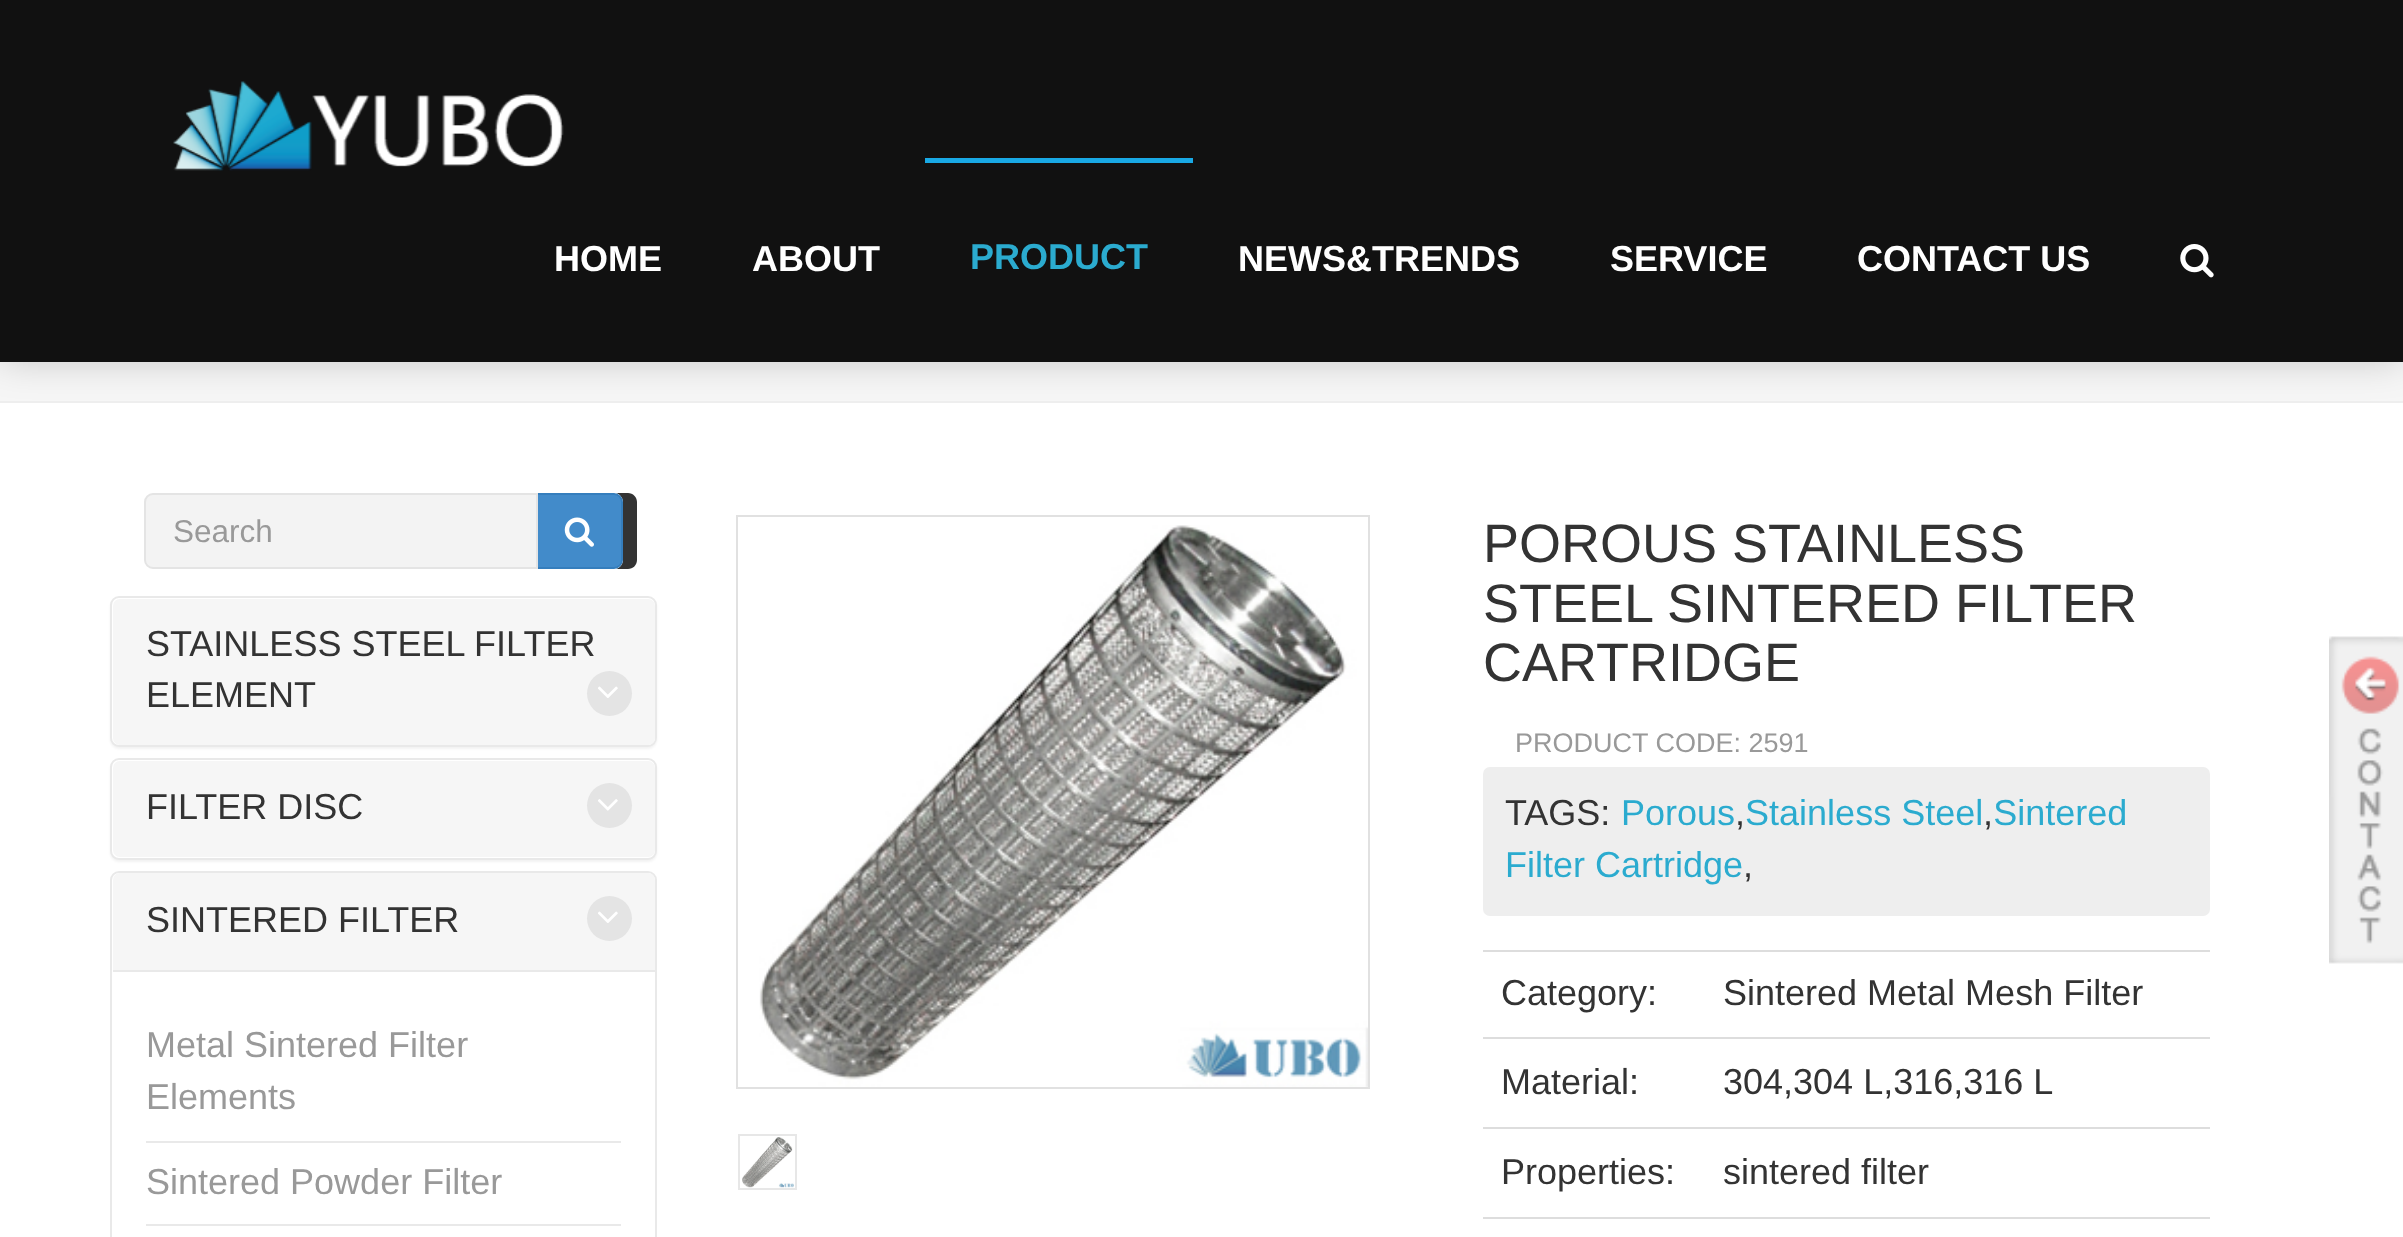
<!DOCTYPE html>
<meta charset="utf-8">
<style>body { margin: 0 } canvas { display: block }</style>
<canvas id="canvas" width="2403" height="1237"></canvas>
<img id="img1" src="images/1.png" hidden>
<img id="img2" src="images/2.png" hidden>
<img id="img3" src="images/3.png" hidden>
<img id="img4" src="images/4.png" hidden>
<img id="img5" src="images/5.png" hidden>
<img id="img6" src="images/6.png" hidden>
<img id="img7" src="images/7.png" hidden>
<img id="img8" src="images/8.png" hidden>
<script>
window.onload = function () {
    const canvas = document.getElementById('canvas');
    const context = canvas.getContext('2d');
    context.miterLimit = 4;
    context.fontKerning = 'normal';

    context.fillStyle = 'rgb(255, 255, 255)';
    context.fillRect(0, 0, 2403, 1237);
    context.fillStyle = 'rgb(246, 246, 246)';
    context.fillRect(0, 362, 2403, 39);
    context.fillStyle = 'rgb(238, 238, 238)';
    context.fillRect(0, 401, 2403, 2);
    context.fillStyle = 'rgba(0, 0, 0, 0.18)';
    context.filter = 'blur(18px)';
    context.beginPath();
    context.rect(0, 0, 2403, 362);
    context.fill();
    context.filter = 'none';
    context.fillStyle = 'rgb(17, 17, 17)';
    context.fillRect(0, 0, 2403, 362);
    context.drawImage(document.getElementById('img1'), 173, 81, 391, 90);
    context.fillStyle = 'rgb(25, 169, 229)';
    context.fillRect(925, 158, 268, 5);
    context.drawImage(document.getElementById('img2'), 2180, 244, 34, 34);
    context.fillStyle = 'rgb(51, 51, 51)';
    context.beginPath();
    context.moveTo(616, 569);
    context.lineTo(628, 569);
    context.bezierCurveTo(633, 569, 637, 565, 637, 560);
    context.lineTo(637, 502);
    context.bezierCurveTo(637, 497, 633, 493, 628, 493);
    context.lineTo(616, 493);
    context.bezierCurveTo(620, 494, 623, 498, 623, 502);
    context.lineTo(623, 560);
    context.bezierCurveTo(623, 564, 620, 568, 616, 569);
    context.closePath();
    context.fill();
    context.fillStyle = 'rgb(66, 139, 202)';
    context.beginPath();
    context.roundRect(537, 494, 85, 74, [0, 8, 8, 0]);
    context.fill();
    context.strokeStyle = 'rgb(53, 126, 189)';
    context.lineWidth = 2;
    context.stroke();
    context.fillStyle = 'rgb(243, 243, 243)';
    context.beginPath();
    context.roundRect(145, 494, 392, 74, [8, 0, 0, 8]);
    context.fill();
    context.strokeStyle = 'rgb(228, 228, 228)';
    context.stroke();
    context.drawImage(document.getElementById('img3'), 564, 517, 30, 30);
    context.fillStyle = 'rgba(0, 0, 0, 0.05)';
    context.filter = 'blur(1px)';
    context.beginPath();
    context.roundRect(110, 599, 547, 150, 9);
    context.fill();
    context.filter = 'none';
    context.fillStyle = 'rgb(255, 255, 255)';
    context.beginPath();
    context.roundRect(111, 597, 545, 149, 8);
    context.fill();
    context.strokeStyle = 'rgb(233, 233, 233)';
    context.stroke();
    context.fillStyle = 'rgb(246, 246, 246)';
    context.beginPath();
    context.roundRect(113, 599, 542, 146, 7);
    context.fill();
    context.fillStyle = 'rgb(228, 228, 228)';
    context.beginPath();
    context.arc(609.5, 693.5, 22.5, 0, 2 * Math.PI);
    context.fill();
    context.drawImage(document.getElementById('img4'), 598, 686, 20, 12);
    context.fillStyle = 'rgba(0, 0, 0, 0.05)';
    context.filter = 'blur(1px)';
    context.beginPath();
    context.roundRect(110, 761, 547, 101, 9);
    context.fill();
    context.filter = 'none';
    context.fillStyle = 'rgb(255, 255, 255)';
    context.beginPath();
    context.roundRect(111, 759, 545, 100, 8);
    context.fill();
    context.stroke();
    context.fillStyle = 'rgb(246, 246, 246)';
    context.beginPath();
    context.roundRect(113, 761, 542, 96, 7);
    context.fill();
    context.fillStyle = 'rgb(228, 228, 228)';
    context.beginPath();
    context.arc(609.5, 805.5, 22.5, 0, 2 * Math.PI);
    context.fill();
    context.drawImage(document.getElementById('img5'), 598, 799, 20, 12);
    context.beginPath();
    context.roundRect(111, 872, 545, 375, 8);
    context.stroke();
    context.fillStyle = 'rgb(246, 246, 246)';
    context.beginPath();
    context.roundRect(113, 873, 542, 97, [7, 7, 0, 0]);
    context.fill();
    context.fillStyle = 'rgb(228, 228, 228)';
    context.beginPath();
    context.arc(609.5, 918.5, 22.5, 0, 2 * Math.PI);
    context.fill();
    context.drawImage(document.getElementById('img4'), 598, 911, 20, 12);
    context.fillStyle = 'rgb(233, 233, 233)';
    context.fillRect(113, 970, 542, 2);
    context.fillRect(146, 1141, 475, 2);
    context.fillRect(146, 1224, 475, 2);
    context.strokeStyle = 'rgb(225, 225, 225)';
    context.strokeRect(737, 516, 632, 572);
    context.drawImage(document.getElementById('img6'), 759, 525, 609, 562);
    context.strokeStyle = 'rgb(231, 231, 231)';
    context.strokeRect(739, 1135, 57, 54);
    context.drawImage(document.getElementById('img7'), 742, 1137, 52, 51);
    context.fillStyle = 'rgb(238, 238, 238)';
    context.beginPath();
    context.roundRect(1483, 767, 727, 149, 7);
    context.fill();
    context.fillStyle = 'rgb(221, 221, 221)';
    context.fillRect(1483, 950, 727, 2);
    context.fillRect(1483, 1037, 727, 2);
    context.fillRect(1483, 1127, 727, 2);
    context.fillRect(1483, 1217, 727, 2);
    context.drawImage(document.getElementById('img8'), 2329, 636, 74, 328);
    context.font = 'bold 36px Liberation Sans';
    context.fillStyle = 'rgb(255, 255, 255)';
    context.fillText('HOME', 554, 271);
    context.fillText('ABOUT', 752, 271);
    context.fillStyle = 'rgb(43, 171, 207)';
    context.fillText('PRODUCT', 970, 269);
    context.fillStyle = 'rgb(255, 255, 255)';
    context.fillText('NEWS&TRENDS', 1238, 271);
    context.fillText('SERVICE', 1610, 271);
    context.fillText('CONTACT US', 1857, 271);
    context.font = '31.5px Liberation Sans';
    context.fillStyle = 'rgb(153, 153, 153)';
    context.fillText('Search', 173, 542);
    context.font = '36px Liberation Sans';
    context.fillStyle = 'rgb(51, 51, 51)';
    context.fillText('STAINLESS STEEL FILTER', 146, 656);
    context.fillText('ELEMENT', 146, 707);
    context.fillText('FILTER DISC', 146, 819);
    context.fillText('SINTERED FILTER', 146, 932);
    context.fillStyle = 'rgb(153, 153, 153)';
    context.fillText('Metal Sintered Filter', 146, 1057);
    context.fillText('Elements', 146, 1109);
    context.fillText('Sintered Powder Filter', 146, 1194);
    context.font = '54px Liberation Sans';
    context.fillStyle = 'rgb(51, 51, 51)';
    context.fillText('POROUS STAINLESS', 1483, 562);
    context.fillText('STEEL SINTERED FILTER', 1483, 622);
    context.fillText('CARTRIDGE', 1483, 681);
    context.font = '27px Liberation Sans';
    context.fillStyle = 'rgb(153, 153, 153)';
    context.fillText('PRODUCT CODE: 2591', 1515, 752);
    context.font = '36px Liberation Sans';
    context.fillStyle = 'rgb(51, 51, 51)';
    context.fillText('TAGS:', 1505, 825);
    context.fillStyle = 'rgb(43, 171, 207)';
    context.fillText('Porous Stainless Steel Sintered', 1621, 825);
    context.fillStyle = 'rgb(51, 51, 51)';
    context.fillText(',', 1735, 825);
    context.fillText(',', 1983, 825);
    context.fillStyle = 'rgb(43, 171, 207)';
    context.fillText('Filter Cartridge', 1505, 877);
    context.fillStyle = 'rgb(51, 51, 51)';
    context.fillText(',', 1743, 877);
    context.fillText('Category:', 1501, 1005);
    context.fillText('Sintered Metal Mesh Filter', 1723, 1005);
    context.fillText('Material:', 1501, 1094);
    context.fillText('304,304 L,316,316 L', 1723, 1094);
    context.fillText('Properties:', 1501, 1184);
    context.fillText('sintered filter', 1723, 1184);
};
</script>
